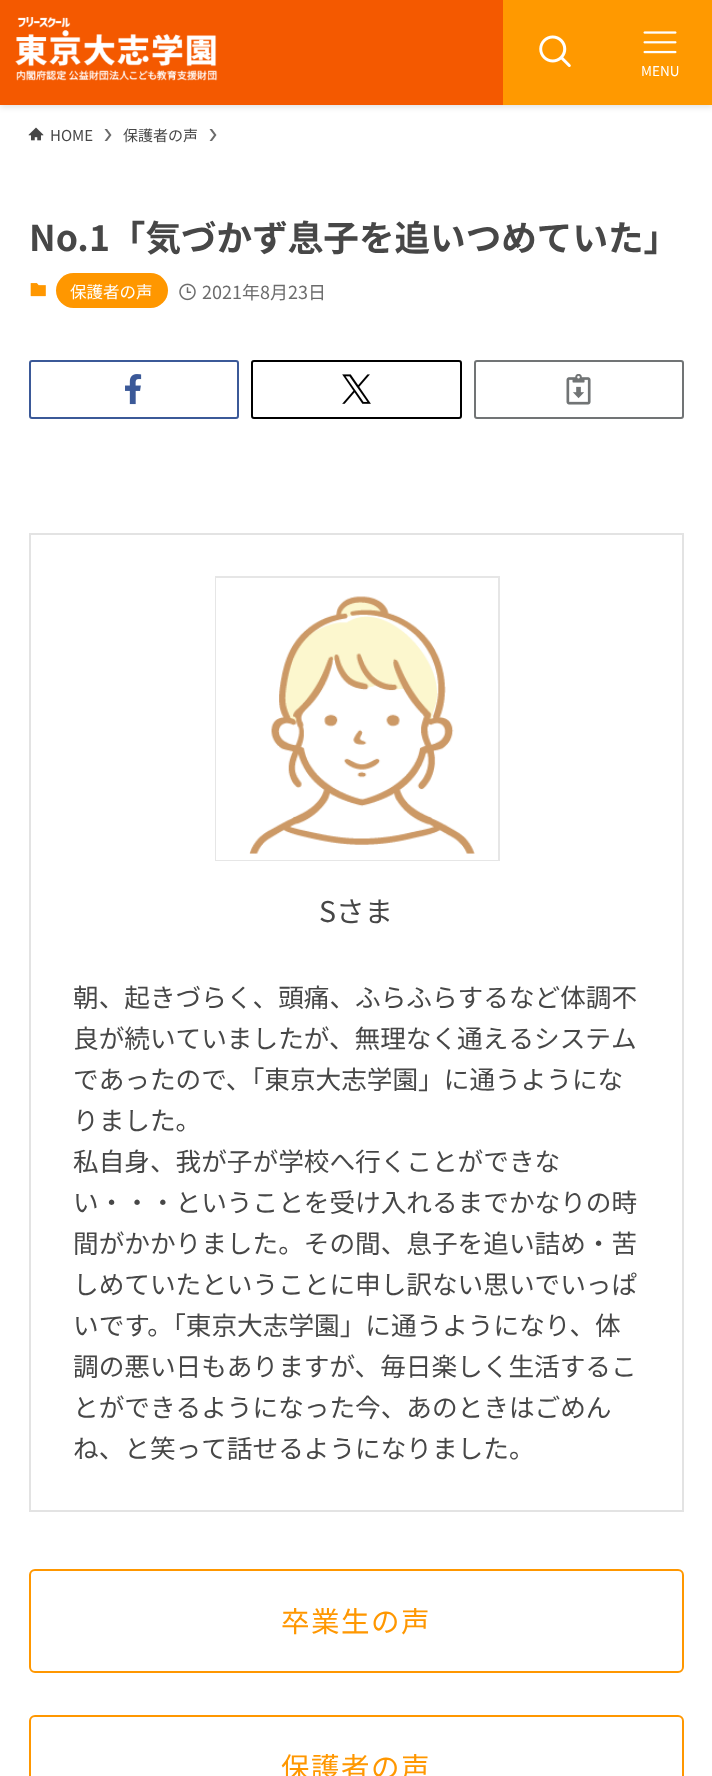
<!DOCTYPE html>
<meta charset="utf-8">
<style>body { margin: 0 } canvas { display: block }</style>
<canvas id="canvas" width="712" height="1776"></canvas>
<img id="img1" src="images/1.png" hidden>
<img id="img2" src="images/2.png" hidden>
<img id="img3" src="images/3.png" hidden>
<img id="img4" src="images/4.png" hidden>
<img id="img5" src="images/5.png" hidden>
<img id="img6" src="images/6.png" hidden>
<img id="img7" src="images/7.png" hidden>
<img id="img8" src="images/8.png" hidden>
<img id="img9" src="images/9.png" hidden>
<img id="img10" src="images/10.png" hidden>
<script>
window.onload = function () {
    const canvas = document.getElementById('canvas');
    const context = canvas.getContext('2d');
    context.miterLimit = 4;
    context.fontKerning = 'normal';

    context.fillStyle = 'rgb(255, 255, 255)';
    context.fillRect(0, 0, 712, 1776);
    context.fillStyle = 'rgba(0, 0, 0, 0.12)';
    context.filter = 'blur(3px)';
    context.beginPath();
    context.rect(0, 2, 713, 105);
    context.fill();
    context.filter = 'none';
    context.fillStyle = 'rgb(244, 89, 0)';
    context.fillRect(0, 0, 503, 105);
    context.drawImage(document.getElementById('img1'), 15, 17, 203, 64);
    context.fillStyle = 'rgb(255, 153, 0)';
    context.fillRect(503, 0, 209, 105);
    context.drawImage(document.getElementById('img2'), 539, 35, 32, 32);
    context.drawImage(document.getElementById('img3'), 643, 31, 34, 23);
    context.drawImage(document.getElementById('img4'), 28, 127, 16, 14);
    context.fillStyle = 'rgb(108, 108, 108)';
    context.beginPath();
    context.moveTo(107, 129);
    context.lineTo(104.5, 129);
    context.lineTo(109, 135);
    context.lineTo(104.5, 141);
    context.lineTo(107, 141);
    context.lineTo(111.5, 135);
    context.closePath();
    context.fill();
    context.beginPath();
    context.moveTo(212, 129);
    context.lineTo(209.5, 129);
    context.lineTo(214, 135);
    context.lineTo(209.5, 141);
    context.lineTo(212, 141);
    context.lineTo(216.5, 135);
    context.closePath();
    context.fill();
    context.drawImage(document.getElementById('img5'), 30, 283, 16, 14);
    context.fillStyle = 'rgb(255, 151, 0)';
    context.beginPath();
    context.roundRect(56, 273, 112, 35, 17.5);
    context.fill();
    context.drawImage(document.getElementById('img6'), 179, 283, 17, 18);
    context.beginPath();
    context.roundRect(30, 361, 208, 57, 2);
    context.strokeStyle = 'rgb(59, 89, 152)';
    context.lineWidth = 2;
    context.stroke();
    context.drawImage(document.getElementById('img7'), 125, 374, 17, 31);
    context.beginPath();
    context.roundRect(252, 361, 209, 57, 2);
    context.strokeStyle = 'rgb(0, 0, 0)';
    context.stroke();
    context.drawImage(document.getElementById('img8'), 342, 374, 29, 30);
    context.beginPath();
    context.roundRect(475, 361, 208, 57, 2);
    context.strokeStyle = 'rgb(113, 116, 117)';
    context.stroke();
    context.drawImage(document.getElementById('img9'), 566, 374, 25, 31);
    context.strokeStyle = 'rgb(227, 227, 227)';
    context.strokeRect(30, 534, 653, 977);
    context.strokeStyle = 'rgb(230, 230, 230)';
    context.strokeRect(216, 577, 283, 283);
    context.strokeStyle = 'rgb(255, 255, 255)';
    context.lineWidth = 6;
    context.strokeRect(219, 581, 276, 276);
    context.drawImage(document.getElementById('img10'), 249, 596, 226, 258);
    context.beginPath();
    context.roundRect(30, 1570, 653, 102, 5);
    context.strokeStyle = 'rgb(255, 151, 0)';
    context.lineWidth = 2;
    context.stroke();
    context.beginPath();
    context.roundRect(30, 1716, 653, 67, 5);
    context.stroke();
    context.font = '13.5px Noto Sans JP';
    context.fillStyle = 'rgb(255, 255, 255)';
    context.fillText('MENU', 641, 76);
    context.font = '15px Noto Sans JP';
    context.fillStyle = 'rgb(71, 71, 71)';
    context.fillText('HOME', 50, 141);
    context.fillText('保護者の声', 123, 141);
    context.font = 'bold 35.6px Noto Sans JP';
    context.fillText('No.1「気づかず息子を追いつめていた」', 29, 251);
    context.font = '16.5px Noto Sans JP';
    context.fillStyle = 'rgb(255, 255, 255)';
    context.fillText('保護者の声', 70, 298);
    context.font = '18px Noto Sans JP';
    context.fillStyle = 'rgb(108, 108, 108)';
    context.fillText('2021年8月23日', 202, 299);
    context.font = '28.5px Noto Sans JP';
    context.fillStyle = 'rgb(71, 71, 71)';
    context.fillText('Sさま', 319, 922);
    context.font = '25.65px Noto Sans JP';
    context.fillText('朝、起きづらく、頭痛、ふらふらするなど体調不', 73, 1007);
    context.fillText('良が続いていましたが、無理なく通えるシステム', 73, 1048);
    context.fillText('であったので、「東京大志学園」に通うようにな', 73, 1089);
    context.fillText('りました。', 73, 1130);
    context.fillText('私自身、我が子が学校へ行くことができな', 73, 1171);
    context.fillText('い・・・ということを受け入れるまでかなりの時', 73, 1212);
    context.fillText('間がかかりました。その間、息子を追い詰め・苦', 73, 1253);
    context.fillText('しめていたということに申し訳ない思いでいっぱ', 73, 1294);
    context.fillText('いです。「東京大志学園」に通うようになり、体', 73, 1335);
    context.fillText('調の悪い日もありますが、毎日楽しく生活するこ', 73, 1376);
    context.fillText('とができるようになった今、あのときはごめん', 73, 1417);
    context.fillText('ね、と笑って話せるようになりました。', 73, 1458);
    context.letterSpacing = '1.5px';
    context.font = '28.5px Noto Sans JP';
    context.fillStyle = 'rgb(255, 151, 0)';
    context.fillText('卒業生の声', 281, 1632);
    context.fillText('保護者の声', 281, 1778);
};
</script>
